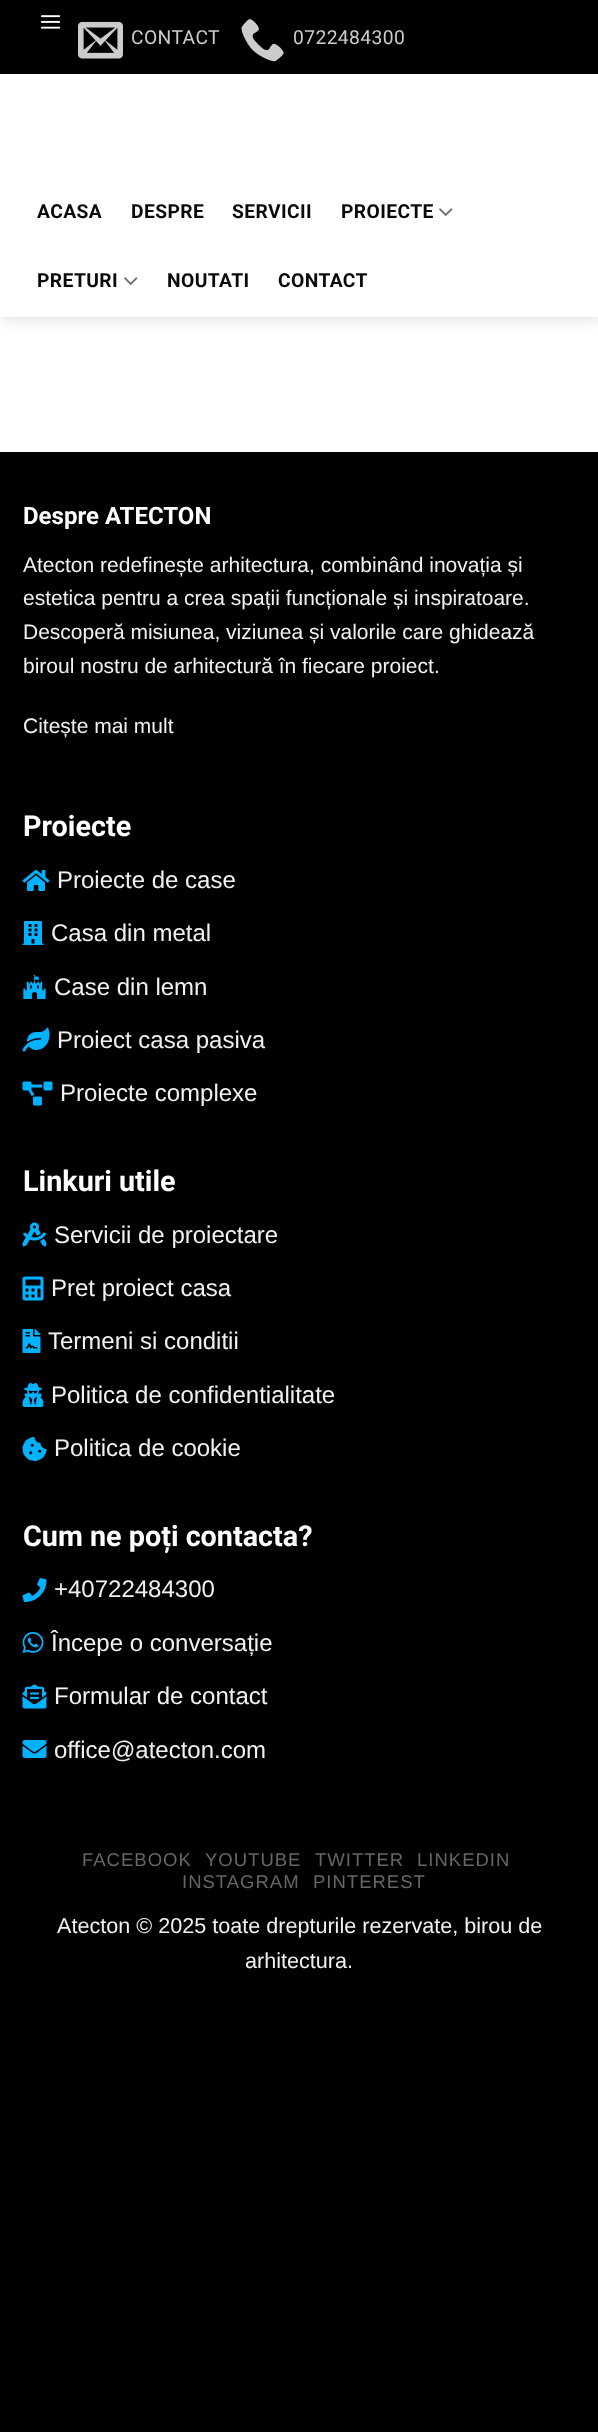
<!DOCTYPE html>
<meta charset="utf-8">
<style>body { margin: 0 } canvas { display: block }</style>
<canvas id="canvas" width="598" height="2432"></canvas>
<img id="img1" src="images/1.png" hidden>
<img id="img2" src="images/2.png" hidden>
<img id="img3" src="images/3.png" hidden>
<img id="img4" src="images/4.png" hidden>
<img id="img5" src="images/5.png" hidden>
<img id="img6" src="images/6.png" hidden>
<img id="img7" src="images/7.png" hidden>
<img id="img8" src="images/8.png" hidden>
<img id="img9" src="images/9.png" hidden>
<img id="img10" src="images/10.png" hidden>
<img id="img11" src="images/11.png" hidden>
<img id="img12" src="images/12.png" hidden>
<img id="img13" src="images/13.png" hidden>
<img id="img14" src="images/14.png" hidden>
<img id="img15" src="images/15.png" hidden>
<img id="img16" src="images/16.png" hidden>
<img id="img17" src="images/17.png" hidden>
<img id="img18" src="images/18.png" hidden>
<script>
window.onload = function () {
    const canvas = document.getElementById('canvas');
    const context = canvas.getContext('2d');
    context.miterLimit = 4;
    context.fontKerning = 'normal';

    context.fillStyle = 'rgb(0, 0, 0)';
    context.fillRect(0, 0, 598, 2432);
    context.fillStyle = 'rgb(255, 255, 255)';
    context.fillRect(0, 74, 598, 378);
    context.save();
    context.beginPath();
    context.moveTo(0, 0);
    context.lineTo(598, 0);
    context.lineTo(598, 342);
    context.lineTo(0, 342);
    context.closePath();
    context.moveTo(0, 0);
    context.lineTo(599, 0);
    context.lineTo(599, 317);
    context.lineTo(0, 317);
    context.closePath();
    context.clip('evenodd');
    context.fillStyle = 'rgba(0, 0, 0, 0.15)';
    context.filter = 'blur(7.5px)';
    context.beginPath();
    context.rect(2, 2, 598, 316);
    context.fill();
    context.filter = 'none';
    context.restore();
    context.fillStyle = 'rgba(255, 255, 255, 0.42)';
    context.fillRect(3, 316, 595, 1);
    context.drawImage(document.getElementById('img1'), 40, 15, 21, 14);
    context.drawImage(document.getElementById('img2'), 78, 21, 45, 38);
    context.drawImage(document.getElementById('img3'), 241, 19, 43, 43);
    context.drawImage(document.getElementById('img4'), 439, 208, 14, 8);
    context.drawImage(document.getElementById('img4'), 124, 277, 14, 8);
    context.fillRect(15, 316, 572, 1);
    context.drawImage(document.getElementById('img5'), 22, 870, 28, 21);
    context.drawImage(document.getElementById('img6'), 22, 921, 22, 24);
    context.drawImage(document.getElementById('img7'), 23, 975, 23, 24);
    context.drawImage(document.getElementById('img8'), 22, 1027, 28, 25);
    context.drawImage(document.getElementById('img9'), 22, 1081, 31, 25);
    context.drawImage(document.getElementById('img10'), 22, 1222, 25, 25);
    context.drawImage(document.getElementById('img11'), 22, 1276, 22, 25);
    context.drawImage(document.getElementById('img12'), 22, 1329, 19, 24);
    context.drawImage(document.getElementById('img13'), 22, 1383, 22, 24);
    context.drawImage(document.getElementById('img14'), 22, 1437, 25, 24);
    context.drawImage(document.getElementById('img15'), 22, 1578, 25, 24);
    context.drawImage(document.getElementById('img16'), 22, 1632, 22, 21);
    context.drawImage(document.getElementById('img17'), 22, 1684, 25, 25);
    context.drawImage(document.getElementById('img18'), 22, 1740, 25, 18);
    context.letterSpacing = '0.4px';
    context.font = '19.25px Roboto';
    context.fillStyle = 'rgb(204, 204, 204)';
    context.fillText('CONTACT', 131, 44);
    context.fillText('0722484300', 293, 44);
    context.font = 'bold 19.25px Roboto';
    context.fillStyle = 'rgb(10, 10, 10)';
    context.fillText('ACASA', 37, 218);
    context.fillText('DESPRE', 131, 218);
    context.fillText('SERVICII', 232, 218);
    context.fillText('PROIECTE', 341, 218);
    context.fillText('PRETURI', 37, 287);
    context.fillText('NOUTATI', 167, 287);
    context.fillText('CONTACT', 278, 287);
    context.letterSpacing = '0px';
    context.font = 'bold 24px Roboto';
    context.fillStyle = 'rgb(255, 255, 255)';
    context.fillText('Despre ATECTON', 23, 524);
    context.font = '21px Liberation Sans';
    context.fillStyle = 'rgb(241, 241, 241)';
    context.fillText('Atecton redefinește arhitectura, combinând inovația și', 23, 572);
    context.fillText('estetica pentru a crea spații funcționale și inspiratoare.', 23, 605);
    context.fillText('Descoperă misiunea, viziunea și valorile care ghidează', 23, 639);
    context.fillText('biroul nostru de arhitectură în fiecare proiect.', 23, 673);
    context.fillText('Citește mai mult', 23, 733);
    context.font = 'bold 28.75px Roboto';
    context.fillStyle = 'rgb(255, 255, 255)';
    context.fillText('Proiecte', 23, 836);
    context.font = '24px Liberation Sans';
    context.fillStyle = 'rgb(241, 241, 241)';
    context.fillText('Proiecte de case', 57, 888);
    context.fillText('Casa din metal', 51, 941);
    context.fillText('Case din lemn', 54, 995);
    context.fillText('Proiect casa pasiva', 57, 1048);
    context.fillText('Proiecte complexe', 60, 1101);
    context.font = 'bold 28.75px Roboto';
    context.fillStyle = 'rgb(255, 255, 255)';
    context.fillText('Linkuri utile', 23, 1191);
    context.font = '24px Liberation Sans';
    context.fillStyle = 'rgb(241, 241, 241)';
    context.fillText('Servicii de proiectare', 54, 1243);
    context.fillText('Pret proiect casa', 51, 1296);
    context.fillText('Termeni si conditii', 48, 1349);
    context.fillText('Politica de confidentialitate', 51, 1403);
    context.fillText('Politica de cookie', 54, 1456);
    context.font = 'bold 28.75px Roboto';
    context.fillStyle = 'rgb(255, 255, 255)';
    context.fillText('Cum ne poți contacta?', 23, 1546);
    context.font = '24px Liberation Sans';
    context.fillStyle = 'rgb(241, 241, 241)';
    context.fillText('+40722484300', 54, 1597);
    context.fillText('Începe o conversație', 51, 1651);
    context.fillText('Formular de contact', 54, 1704);
    context.fillText('office@atecton.com', 54, 1758);
    context.letterSpacing = '1px';
    context.font = '18.5px Liberation Sans';
    context.fillStyle = 'rgb(102, 102, 102)';
    context.fillText('FACEBOOK', 82, 1866);
    context.fillText('YOUTUBE', 205, 1866);
    context.fillText('TWITTER', 315, 1866);
    context.fillText('LINKEDIN', 417, 1866);
    context.fillText('INSTAGRAM', 182, 1888);
    context.fillText('PINTEREST', 313, 1888);
    context.letterSpacing = '0px';
    context.font = '21.6px Liberation Sans';
    context.fillStyle = 'rgb(241, 241, 241)';
    context.fillText('Atecton © 2025 toate drepturile rezervate, birou de', 57, 1933);
    context.fillText('arhitectura.', 245, 1968);
};
</script>
